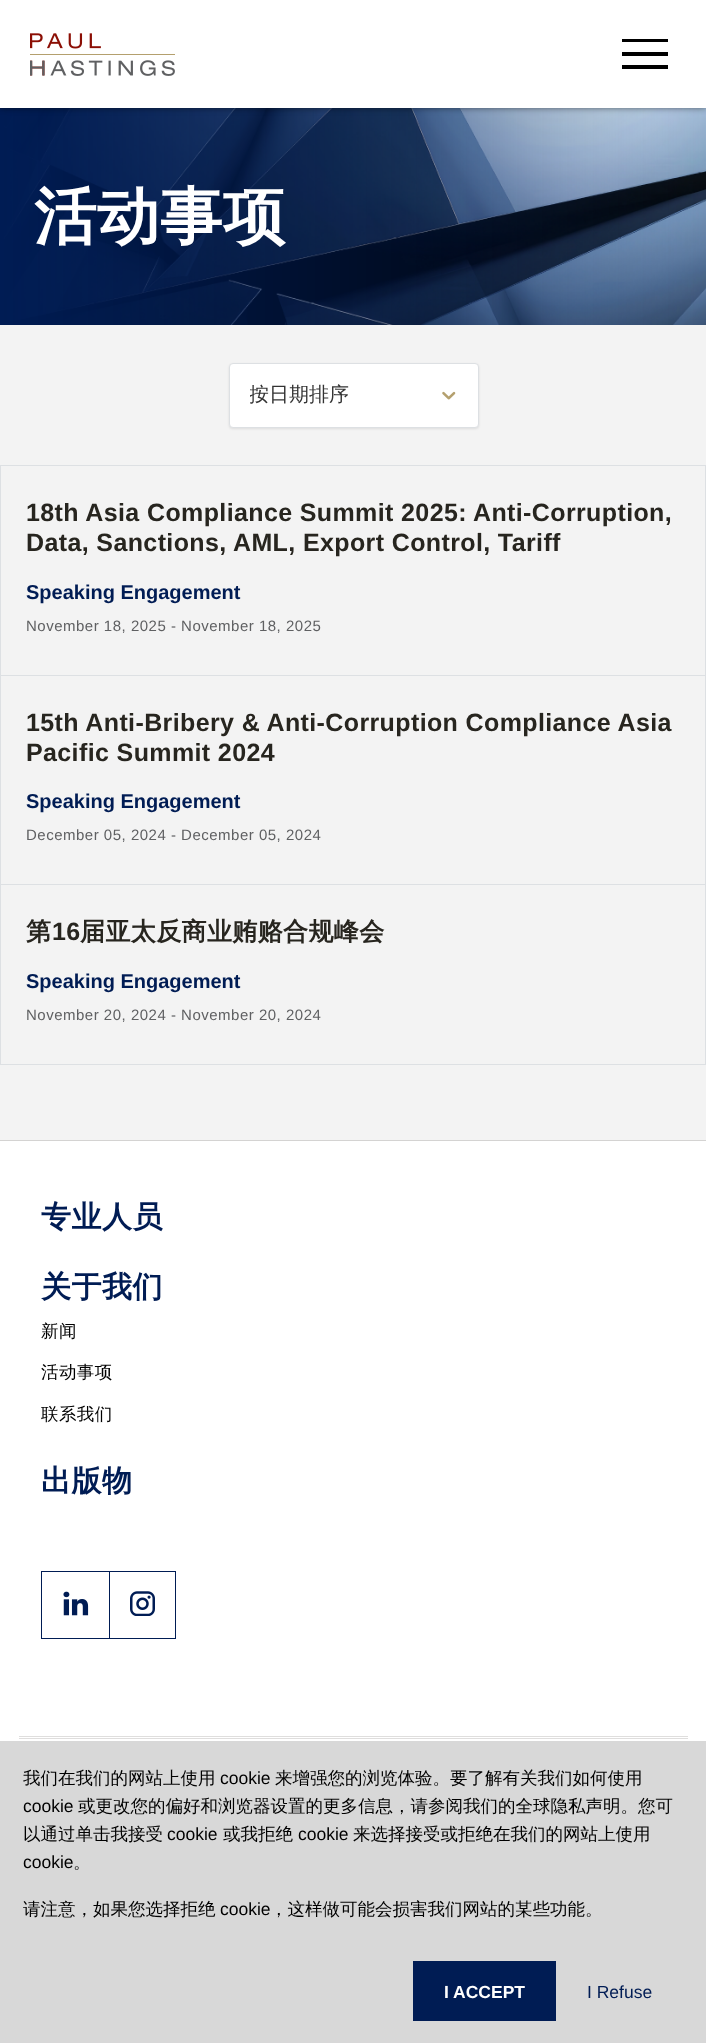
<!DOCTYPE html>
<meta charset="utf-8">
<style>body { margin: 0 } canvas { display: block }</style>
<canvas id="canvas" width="706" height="2043"></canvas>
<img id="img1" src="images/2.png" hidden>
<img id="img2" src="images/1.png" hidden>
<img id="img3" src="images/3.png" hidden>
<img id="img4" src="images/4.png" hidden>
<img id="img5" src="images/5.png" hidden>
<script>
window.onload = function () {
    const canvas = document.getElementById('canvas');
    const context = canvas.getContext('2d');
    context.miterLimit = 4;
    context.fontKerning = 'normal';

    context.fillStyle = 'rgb(243, 243, 243)';
    context.fillRect(0, 0, 706, 2043);
    context.drawImage(document.getElementById('img1'), 0, 108, 706, 217);
    context.fillStyle = 'rgba(0, 0, 0, 0.5)';
    context.filter = 'blur(3px)';
    context.beginPath();
    context.rect(0, 0, 706, 108);
    context.fill();
    context.filter = 'none';
    context.fillStyle = 'rgb(255, 255, 255)';
    context.fillRect(0, 0, 706, 108);
    context.drawImage(document.getElementById('img2'), 30, 33, 145, 43);
    context.fillStyle = 'rgb(0, 0, 0)';
    context.beginPath();
    context.moveTo(622, 69);
    context.lineTo(622, 65);
    context.lineTo(668, 65);
    context.lineTo(668, 69);
    context.closePath();
    context.moveTo(622, 56);
    context.lineTo(622, 52);
    context.lineTo(668, 52);
    context.lineTo(668, 56);
    context.closePath();
    context.moveTo(622, 42);
    context.lineTo(622, 39);
    context.lineTo(668, 39);
    context.lineTo(668, 42);
    context.closePath();
    context.fill();
    context.fillStyle = 'rgba(0, 0, 0, 0.09)';
    context.filter = 'blur(1px)';
    context.beginPath();
    context.roundRect(229, 364, 250, 65, 4);
    context.fill();
    context.filter = 'none';
    context.fillStyle = 'rgb(255, 255, 255)';
    context.beginPath();
    context.roundRect(229.5, 363.5, 249, 64, 3.5);
    context.fill();
    context.strokeStyle = 'rgb(221, 224, 227)';
    context.stroke();
    context.drawImage(document.getElementById('img3'), 442, 391, 14, 9);
    context.fillStyle = 'rgb(221, 224, 227)';
    context.fillRect(0, 465, 706, 1);
    context.fillRect(0, 465, 1, 600);
    context.fillRect(705, 466, 1, 599);
    context.fillRect(1, 675, 705, 1);
    context.fillRect(1, 884, 705, 1);
    context.fillRect(1, 1064, 705, 1);
    context.fillStyle = 'rgb(255, 255, 255)';
    context.fillRect(0, 1141, 706, 600);
    context.fillStyle = 'rgb(212, 211, 210)';
    context.fillRect(0, 1140, 706, 1);
    context.fillStyle = 'rgb(223, 222, 221)';
    context.fillRect(19, 1736, 669, 1);
    context.fillStyle = 'rgb(0, 28, 84)';
    context.fillRect(41, 1571, 68, 1);
    context.fillRect(41, 1638, 68, 1);
    context.fillRect(41, 1571, 1, 68);
    context.drawImage(document.getElementById('img4'), 63, 1591, 26, 25);
    context.strokeStyle = 'rgb(0, 28, 84)';
    context.strokeRect(109.5, 1571.5, 66, 67);
    context.drawImage(document.getElementById('img5'), 130, 1591, 25, 25);
    context.fillStyle = 'rgb(223, 222, 221)';
    context.fillRect(19, 1738, 669, 1);
    context.fillStyle = 'rgb(216, 216, 216)';
    context.fillRect(0, 1741, 706, 302);
    context.fillStyle = 'rgb(0, 28, 84)';
    context.fillRect(413, 1961, 143, 60);
    context.letterSpacing = '0.5px';
    context.font = 'bold 62.5px WenQuanYi Zen Hei';
    context.fillStyle = 'rgb(255, 255, 255)';
    context.fillText('活动事项', 34, 238);
    context.save();
    context.beginPath();
    context.rect(250, 380, 185, 30);
    context.clip();
    context.letterSpacing = '0px';
    context.font = '500 20px WenQuanYi Zen Hei';
    context.fillStyle = 'rgb(51, 51, 51)';
    context.fillText('按日期排序', 249, 401);
    context.restore();
    context.letterSpacing = '0.38px';
    context.font = 'bold 25px Liberation Sans';
    context.fillStyle = 'rgb(39, 37, 31)';
    context.fillText('18th Asia Compliance Summit 2025:', 26, 521);
    context.fillText('Anti-Corruption,', 473, 521);
    context.fillText('Data, Sanctions, AML, Export Control, Tariff', 26, 551);
    context.letterSpacing = '0px';
    context.font = 'bold 20px Liberation Sans';
    context.fillStyle = 'rgb(0, 28, 84)';
    context.fillText('Speaking Engagement', 26, 599);
    context.letterSpacing = '0.5px';
    context.font = '15px Liberation Sans';
    context.fillStyle = 'rgb(95, 96, 98)';
    context.fillText('November 18, 2025 - November 18, 2025', 26, 631);
    context.letterSpacing = '0.38px';
    context.font = 'bold 25px Liberation Sans';
    context.fillStyle = 'rgb(39, 37, 31)';
    context.fillText('15th Anti-Bribery & Anti-Corruption Compliance Asia', 26, 731);
    context.fillText('Pacific Summit 2024', 26, 761);
    context.letterSpacing = '0px';
    context.font = 'bold 20px Liberation Sans';
    context.fillStyle = 'rgb(0, 28, 84)';
    context.fillText('Speaking Engagement', 26, 808);
    context.letterSpacing = '0.5px';
    context.font = '15px Liberation Sans';
    context.fillStyle = 'rgb(95, 96, 98)';
    context.fillText('December 05, 2024 - December 05, 2024', 26, 840);
    context.letterSpacing = '0.38px';
    context.font = 'bold 25px WenQuanYi Zen Hei';
    context.fillStyle = 'rgb(39, 37, 31)';
    context.fillText('第', 26, 940);
    context.font = 'bold 25px Liberation Sans';
    context.fillText('16', 52, 940);
    context.font = 'bold 25px WenQuanYi Zen Hei';
    context.fillText('届亚太反商业贿赂合规峰会', 80, 940);
    context.letterSpacing = '0px';
    context.font = 'bold 20px Liberation Sans';
    context.fillStyle = 'rgb(0, 28, 84)';
    context.fillText('Speaking Engagement', 26, 988);
    context.letterSpacing = '0.5px';
    context.font = '15px Liberation Sans';
    context.fillStyle = 'rgb(95, 96, 98)';
    context.fillText('November 20, 2024 - November 20, 2024', 26, 1020);
    context.font = 'bold 30px WenQuanYi Zen Hei';
    context.fillStyle = 'rgb(0, 28, 84)';
    context.fillText('专业人员', 41, 1227);
    context.fillText('关于我们', 41, 1297);
    context.letterSpacing = '0.38px';
    context.font = '500 17.5px WenQuanYi Zen Hei';
    context.fillStyle = 'rgb(0, 0, 0)';
    context.fillText('新闻', 41, 1337);
    context.fillText('活动事项', 41, 1378);
    context.fillText('联系我们', 41, 1420);
    context.letterSpacing = '0.5px';
    context.font = 'bold 30px WenQuanYi Zen Hei';
    context.fillStyle = 'rgb(0, 28, 84)';
    context.fillText('出版物', 41, 1491);
    context.letterSpacing = '0px';
    context.font = '500 17.5px WenQuanYi Zen Hei';
    context.fillStyle = 'rgb(0, 0, 0)';
    context.fillText('我们在我们的网站上使用', 23, 1784);
    context.font = '17.5px Liberation Sans';
    context.fillText('cookie', 220, 1784);
    context.font = '500 17.5px WenQuanYi Zen Hei';
    context.fillText('来增强您的浏览体验。要了解有关我们如何使用', 275, 1784);
    context.font = '17.5px Liberation Sans';
    context.fillText('cookie', 23, 1812);
    context.font = '500 17.5px WenQuanYi Zen Hei';
    context.fillText('或更改您的偏好和浏览器设置的更多信息，请参阅我们的全球隐私声明。您可', 78, 1812);
    context.fillText('以通过单击我接受', 23, 1840);
    context.font = '17.5px Liberation Sans';
    context.fillText('cookie', 167, 1840);
    context.font = '500 17.5px WenQuanYi Zen Hei';
    context.fillText('或我拒绝', 223, 1840);
    context.font = '17.5px Liberation Sans';
    context.fillText('cookie', 298, 1840);
    context.font = '500 17.5px WenQuanYi Zen Hei';
    context.fillText('来选择接受或拒绝在我们的网站上使用', 353, 1840);
    context.font = '17.5px Liberation Sans';
    context.fillText('cookie', 23, 1868);
    context.font = '500 17.5px WenQuanYi Zen Hei';
    context.fillText('。', 73, 1868);
    context.fillText('请注意，如果您选择拒绝', 23, 1915);
    context.font = '17.5px Liberation Sans';
    context.fillText('cookie', 220, 1915);
    context.font = '500 17.5px WenQuanYi Zen Hei';
    context.fillText('，这样做可能会损害我们网站的某些功能。', 270, 1915);
    context.font = 'bold 17.5px Liberation Sans';
    context.fillStyle = 'rgb(255, 255, 255)';
    context.fillText('I ACCEPT', 444, 1998);
    context.font = '17.5px Liberation Sans';
    context.fillStyle = 'rgb(0, 28, 84)';
    context.fillText('I Refuse', 587, 1998);
};
</script>
